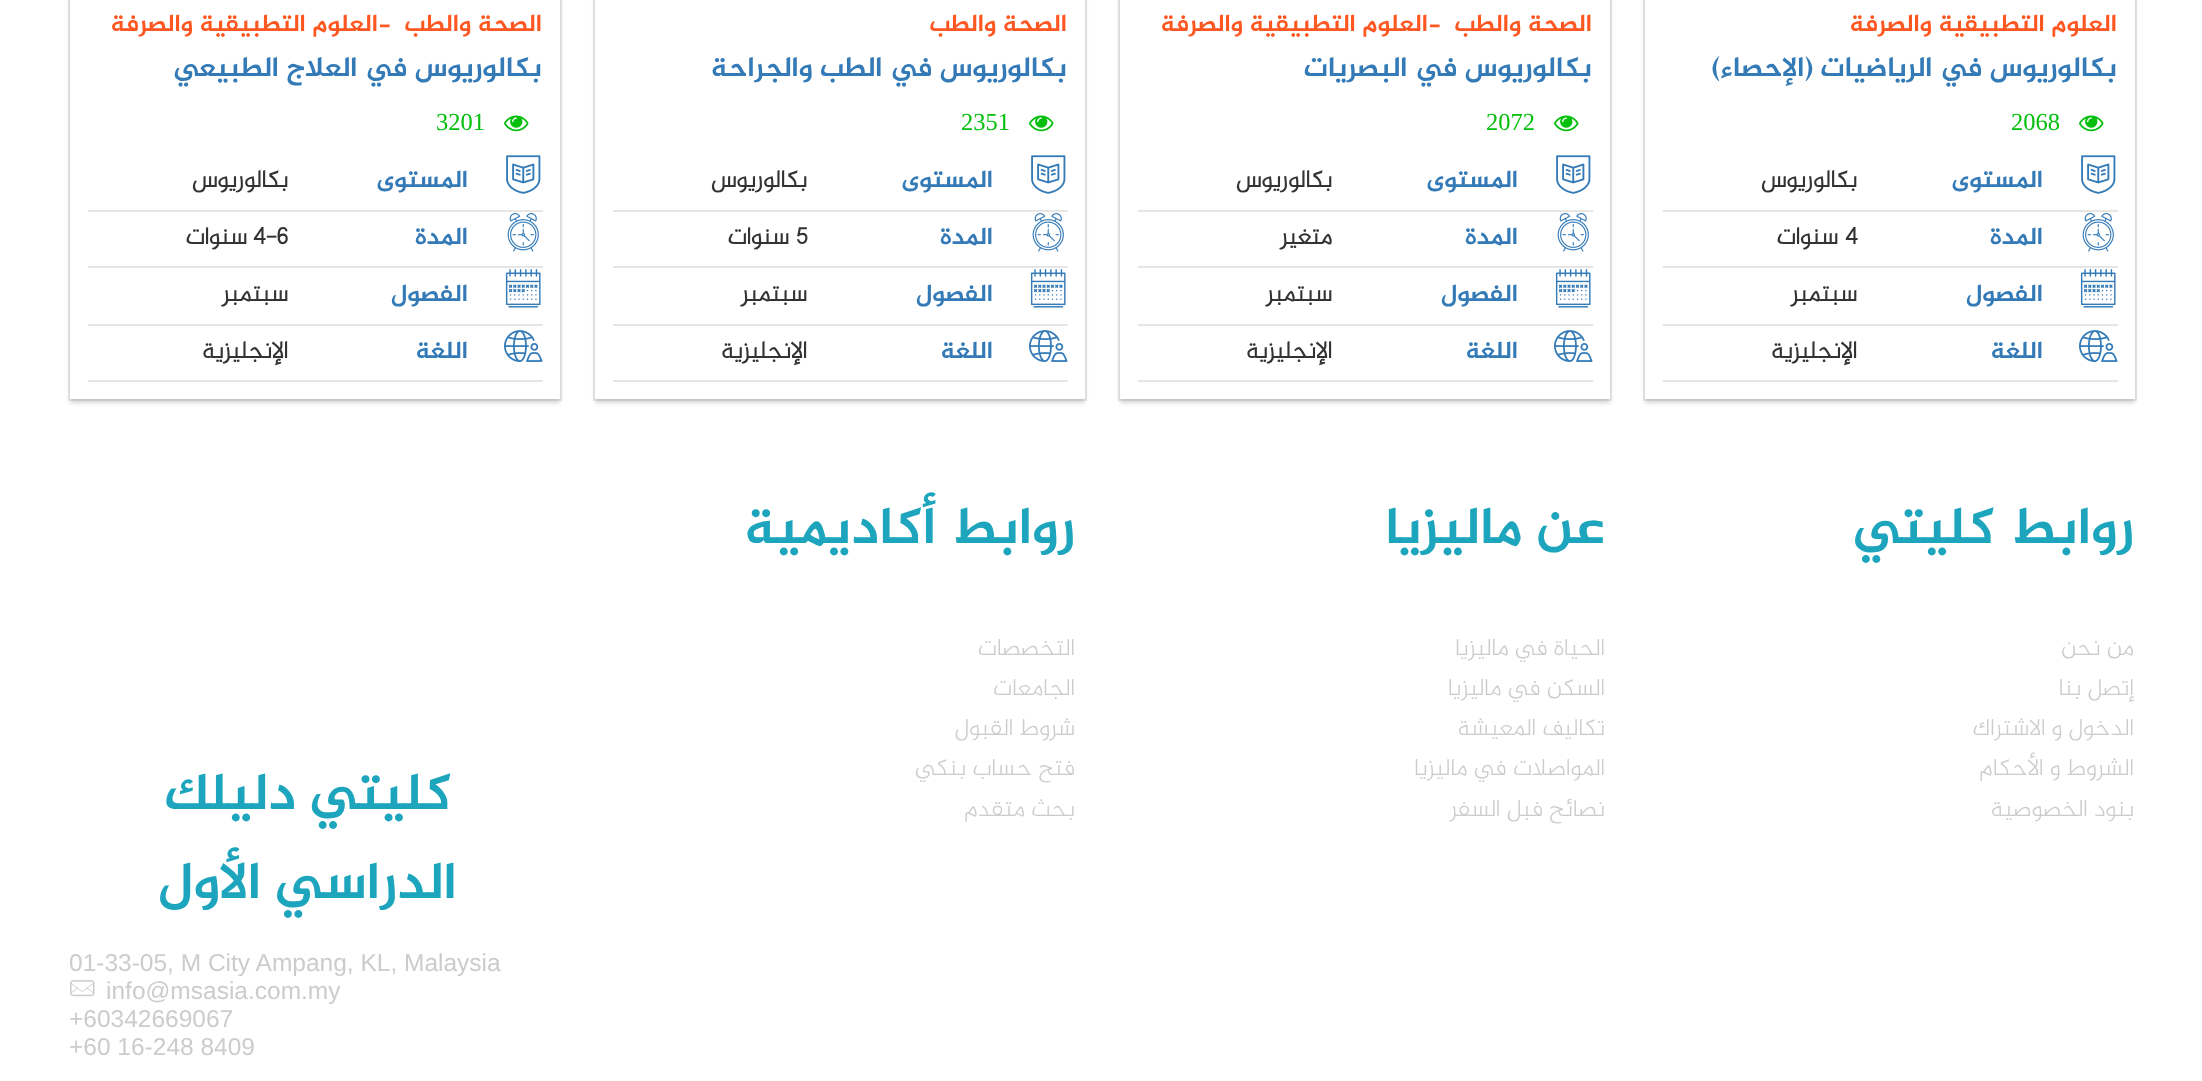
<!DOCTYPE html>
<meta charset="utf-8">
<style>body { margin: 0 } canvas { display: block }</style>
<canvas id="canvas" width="2202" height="1081"></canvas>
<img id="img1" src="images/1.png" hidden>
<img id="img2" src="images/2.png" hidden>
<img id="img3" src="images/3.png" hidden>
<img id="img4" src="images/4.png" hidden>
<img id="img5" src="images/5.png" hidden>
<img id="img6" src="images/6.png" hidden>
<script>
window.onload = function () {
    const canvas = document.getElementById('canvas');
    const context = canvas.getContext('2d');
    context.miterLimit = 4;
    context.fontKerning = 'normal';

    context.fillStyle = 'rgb(255, 255, 255)';
    context.fillRect(0, 0, 2202, 1081);
    context.strokeStyle = 'rgb(235, 235, 235)';
    context.lineWidth = 2;
    context.strokeRect(1644, -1, 492, 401);
    context.save();
    context.beginPath();
    context.moveTo(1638, 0);
    context.lineTo(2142, 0);
    context.lineTo(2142, 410);
    context.lineTo(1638, 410);
    context.closePath();
    context.moveTo(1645, -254);
    context.lineTo(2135, -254);
    context.lineTo(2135, 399);
    context.lineTo(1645, 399);
    context.closePath();
    context.clip('evenodd');
    context.fillStyle = 'rgba(0, 0, 0, 0.16)';
    context.filter = 'blur(2px)';
    context.beginPath();
    context.rect(1645, -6, 490, 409);
    context.fill();
    context.filter = 'none';
    context.restore();
    context.drawImage(document.getElementById('img1'), 2079, 115, 25, 17);
    context.fillStyle = 'rgb(230, 230, 230)';
    context.fillRect(1663, 210, 455, 2);
    context.drawImage(document.getElementById('img2'), 2081, 155, 35, 39);
    context.fillRect(1663, 266, 455, 2);
    context.drawImage(document.getElementById('img3'), 2082, 213, 32, 39);
    context.fillRect(1663, 324, 455, 2);
    context.drawImage(document.getElementById('img4'), 2080, 269, 36, 39);
    context.fillRect(1663, 380, 455, 2);
    context.drawImage(document.getElementById('img5'), 2079, 330, 39, 32);
    context.strokeRect(1119, -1, 492, 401);
    context.save();
    context.beginPath();
    context.moveTo(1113, 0);
    context.lineTo(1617, 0);
    context.lineTo(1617, 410);
    context.lineTo(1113, 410);
    context.closePath();
    context.moveTo(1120, -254);
    context.lineTo(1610, -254);
    context.lineTo(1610, 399);
    context.lineTo(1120, 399);
    context.closePath();
    context.clip('evenodd');
    context.fillStyle = 'rgba(0, 0, 0, 0.16)';
    context.filter = 'blur(2px)';
    context.beginPath();
    context.rect(1120, -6, 490, 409);
    context.fill();
    context.filter = 'none';
    context.restore();
    context.drawImage(document.getElementById('img1'), 1554, 115, 25, 17);
    context.fillRect(1138, 210, 455, 2);
    context.drawImage(document.getElementById('img2'), 1556, 155, 35, 39);
    context.fillRect(1138, 266, 455, 2);
    context.drawImage(document.getElementById('img3'), 1557, 213, 32, 39);
    context.fillRect(1138, 324, 455, 2);
    context.drawImage(document.getElementById('img4'), 1555, 269, 36, 39);
    context.fillRect(1138, 380, 455, 2);
    context.drawImage(document.getElementById('img5'), 1554, 330, 39, 32);
    context.strokeRect(594, -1, 492, 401);
    context.save();
    context.beginPath();
    context.moveTo(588, 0);
    context.lineTo(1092, 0);
    context.lineTo(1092, 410);
    context.lineTo(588, 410);
    context.closePath();
    context.moveTo(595, -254);
    context.lineTo(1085, -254);
    context.lineTo(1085, 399);
    context.lineTo(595, 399);
    context.closePath();
    context.clip('evenodd');
    context.fillStyle = 'rgba(0, 0, 0, 0.16)';
    context.filter = 'blur(2px)';
    context.beginPath();
    context.rect(595, -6, 490, 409);
    context.fill();
    context.filter = 'none';
    context.restore();
    context.drawImage(document.getElementById('img1'), 1029, 115, 25, 17);
    context.fillRect(613, 210, 455, 2);
    context.drawImage(document.getElementById('img2'), 1031, 155, 35, 39);
    context.fillRect(613, 266, 455, 2);
    context.drawImage(document.getElementById('img3'), 1032, 213, 32, 39);
    context.fillRect(613, 324, 455, 2);
    context.drawImage(document.getElementById('img4'), 1030, 269, 36, 39);
    context.fillRect(613, 380, 455, 2);
    context.drawImage(document.getElementById('img5'), 1029, 330, 39, 32);
    context.strokeRect(69, -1, 492, 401);
    context.save();
    context.beginPath();
    context.moveTo(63, 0);
    context.lineTo(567, 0);
    context.lineTo(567, 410);
    context.lineTo(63, 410);
    context.closePath();
    context.moveTo(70, -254);
    context.lineTo(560, -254);
    context.lineTo(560, 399);
    context.lineTo(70, 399);
    context.closePath();
    context.clip('evenodd');
    context.fillStyle = 'rgba(0, 0, 0, 0.16)';
    context.filter = 'blur(2px)';
    context.beginPath();
    context.rect(70, -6, 490, 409);
    context.fill();
    context.filter = 'none';
    context.restore();
    context.drawImage(document.getElementById('img1'), 504, 115, 25, 17);
    context.fillRect(88, 210, 455, 2);
    context.drawImage(document.getElementById('img2'), 506, 155, 35, 39);
    context.fillRect(88, 266, 455, 2);
    context.drawImage(document.getElementById('img3'), 507, 213, 32, 39);
    context.fillRect(88, 324, 455, 2);
    context.drawImage(document.getElementById('img4'), 505, 269, 36, 39);
    context.fillRect(88, 380, 455, 2);
    context.drawImage(document.getElementById('img5'), 504, 330, 39, 32);
    context.drawImage(document.getElementById('img6'), 70, 980, 25, 17);
    context.direction = 'rtl';
    context.font = 'bold 24.5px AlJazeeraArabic';
    context.fillStyle = 'rgb(255, 87, 34)';
    context.fillText('العلوم التطبيقية والصرفة', 2117, 31);
    context.font = 'bold 28px AlJazeeraArabic';
    context.fillStyle = 'rgb(51, 122, 183)';
    context.fillText('بكالوريوس في الرياضيات (الإحصاء)', 2117, 76);
    context.direction = 'ltr';
    context.font = '24.5px Liberation Serif';
    context.fillStyle = 'rgb(4, 191, 12)';
    context.fillText('2068', 2011, 130);
    context.direction = 'rtl';
    context.font = 'bold 24.5px AlJazeeraArabic';
    context.fillStyle = 'rgb(51, 122, 183)';
    context.fillText('المستوى', 2043, 187);
    context.font = 'bold 24.5px "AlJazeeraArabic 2"';
    context.fillStyle = 'rgb(51, 51, 51)';
    context.fillText('بكالوريوس', 1857, 187);
    context.font = 'bold 24.5px AlJazeeraArabic';
    context.fillStyle = 'rgb(51, 122, 183)';
    context.fillText('المدة', 2043, 244);
    context.direction = 'ltr';
    context.font = 'bold 24.5px "AlJazeeraArabic 2"';
    context.fillStyle = 'rgb(51, 51, 51)';
    context.fillText('4', 1845, 244);
    context.direction = 'rtl';
    context.fillText('سنوات', 1838, 244);
    context.font = 'bold 24.5px AlJazeeraArabic';
    context.fillStyle = 'rgb(51, 122, 183)';
    context.fillText('الفصول', 2043, 301);
    context.font = 'bold 24.5px "AlJazeeraArabic 2"';
    context.fillStyle = 'rgb(51, 51, 51)';
    context.fillText('سبتمبر', 1857, 301);
    context.font = 'bold 24.5px AlJazeeraArabic';
    context.fillStyle = 'rgb(51, 122, 183)';
    context.fillText('اللغة', 2043, 358);
    context.font = 'bold 24.5px "AlJazeeraArabic 2"';
    context.fillStyle = 'rgb(51, 51, 51)';
    context.fillText('الإنجليزية', 1857, 358);
    context.font = 'bold 24.5px AlJazeeraArabic';
    context.fillStyle = 'rgb(255, 87, 34)';
    context.fillText('الصحة والطب', 1592, 31);
    context.direction = 'ltr';
    context.fillText('-', 1428, 31);
    context.direction = 'rtl';
    context.fillText('العلوم التطبيقية والصرفة', 1428, 31);
    context.font = 'bold 28px AlJazeeraArabic';
    context.fillStyle = 'rgb(51, 122, 183)';
    context.fillText('بكالوريوس في البصريات', 1592, 76);
    context.direction = 'ltr';
    context.font = '24.5px Liberation Serif';
    context.fillStyle = 'rgb(4, 191, 12)';
    context.fillText('2072', 1486, 130);
    context.direction = 'rtl';
    context.font = 'bold 24.5px AlJazeeraArabic';
    context.fillStyle = 'rgb(51, 122, 183)';
    context.fillText('المستوى', 1518, 187);
    context.font = 'bold 24.5px "AlJazeeraArabic 2"';
    context.fillStyle = 'rgb(51, 51, 51)';
    context.fillText('بكالوريوس', 1332, 187);
    context.font = 'bold 24.5px AlJazeeraArabic';
    context.fillStyle = 'rgb(51, 122, 183)';
    context.fillText('المدة', 1518, 244);
    context.font = 'bold 24.5px "AlJazeeraArabic 2"';
    context.fillStyle = 'rgb(51, 51, 51)';
    context.fillText('متغير', 1332, 244);
    context.font = 'bold 24.5px AlJazeeraArabic';
    context.fillStyle = 'rgb(51, 122, 183)';
    context.fillText('الفصول', 1518, 301);
    context.font = 'bold 24.5px "AlJazeeraArabic 2"';
    context.fillStyle = 'rgb(51, 51, 51)';
    context.fillText('سبتمبر', 1332, 301);
    context.font = 'bold 24.5px AlJazeeraArabic';
    context.fillStyle = 'rgb(51, 122, 183)';
    context.fillText('اللغة', 1518, 358);
    context.font = 'bold 24.5px "AlJazeeraArabic 2"';
    context.fillStyle = 'rgb(51, 51, 51)';
    context.fillText('الإنجليزية', 1332, 358);
    context.font = 'bold 24.5px AlJazeeraArabic';
    context.fillStyle = 'rgb(255, 87, 34)';
    context.fillText('الصحة والطب', 1067, 31);
    context.font = 'bold 28px AlJazeeraArabic';
    context.fillStyle = 'rgb(51, 122, 183)';
    context.fillText('بكالوريوس في الطب والجراحة', 1067, 76);
    context.direction = 'ltr';
    context.font = '24.5px Liberation Serif';
    context.fillStyle = 'rgb(4, 191, 12)';
    context.fillText('2351', 961, 130);
    context.direction = 'rtl';
    context.font = 'bold 24.5px AlJazeeraArabic';
    context.fillStyle = 'rgb(51, 122, 183)';
    context.fillText('المستوى', 993, 187);
    context.font = 'bold 24.5px "AlJazeeraArabic 2"';
    context.fillStyle = 'rgb(51, 51, 51)';
    context.fillText('بكالوريوس', 807, 187);
    context.font = 'bold 24.5px AlJazeeraArabic';
    context.fillStyle = 'rgb(51, 122, 183)';
    context.fillText('المدة', 993, 244);
    context.direction = 'ltr';
    context.font = 'bold 24.5px "AlJazeeraArabic 2"';
    context.fillStyle = 'rgb(51, 51, 51)';
    context.fillText('5', 796, 244);
    context.direction = 'rtl';
    context.fillText('سنوات', 789, 244);
    context.font = 'bold 24.5px AlJazeeraArabic';
    context.fillStyle = 'rgb(51, 122, 183)';
    context.fillText('الفصول', 993, 301);
    context.font = 'bold 24.5px "AlJazeeraArabic 2"';
    context.fillStyle = 'rgb(51, 51, 51)';
    context.fillText('سبتمبر', 807, 301);
    context.font = 'bold 24.5px AlJazeeraArabic';
    context.fillStyle = 'rgb(51, 122, 183)';
    context.fillText('اللغة', 993, 358);
    context.font = 'bold 24.5px "AlJazeeraArabic 2"';
    context.fillStyle = 'rgb(51, 51, 51)';
    context.fillText('الإنجليزية', 807, 358);
    context.font = 'bold 24.5px AlJazeeraArabic';
    context.fillStyle = 'rgb(255, 87, 34)';
    context.fillText('الصحة والطب', 542, 31);
    context.direction = 'ltr';
    context.fillText('-', 378, 31);
    context.direction = 'rtl';
    context.fillText('العلوم التطبيقية والصرفة', 378, 31);
    context.font = 'bold 28px AlJazeeraArabic';
    context.fillStyle = 'rgb(51, 122, 183)';
    context.fillText('بكالوريوس في العلاج الطبيعي', 542, 76);
    context.direction = 'ltr';
    context.font = '24.5px Liberation Serif';
    context.fillStyle = 'rgb(4, 191, 12)';
    context.fillText('3201', 436, 130);
    context.direction = 'rtl';
    context.font = 'bold 24.5px AlJazeeraArabic';
    context.fillStyle = 'rgb(51, 122, 183)';
    context.fillText('المستوى', 468, 187);
    context.font = 'bold 24.5px "AlJazeeraArabic 2"';
    context.fillStyle = 'rgb(51, 51, 51)';
    context.fillText('بكالوريوس', 288, 187);
    context.font = 'bold 24.5px AlJazeeraArabic';
    context.fillStyle = 'rgb(51, 122, 183)';
    context.fillText('المدة', 468, 244);
    context.direction = 'ltr';
    context.font = 'bold 24.5px "AlJazeeraArabic 2"';
    context.fillStyle = 'rgb(51, 51, 51)';
    context.fillText('4-6', 253, 244);
    context.direction = 'rtl';
    context.fillText('سنوات', 247, 244);
    context.font = 'bold 24.5px AlJazeeraArabic';
    context.fillStyle = 'rgb(51, 122, 183)';
    context.fillText('الفصول', 468, 301);
    context.font = 'bold 24.5px "AlJazeeraArabic 2"';
    context.fillStyle = 'rgb(51, 51, 51)';
    context.fillText('سبتمبر', 288, 301);
    context.font = 'bold 24.5px AlJazeeraArabic';
    context.fillStyle = 'rgb(51, 122, 183)';
    context.fillText('اللغة', 468, 358);
    context.font = 'bold 24.5px "AlJazeeraArabic 2"';
    context.fillStyle = 'rgb(51, 51, 51)';
    context.fillText('الإنجليزية', 288, 358);
    context.font = 'bold 52.5px AlJazeeraArabic';
    context.fillStyle = 'rgb(28, 165, 188)';
    context.fillText('روابط كليتي', 2134, 543);
    context.font = '300 24.5px AlJazeeraArabic';
    context.fillStyle = 'rgb(204, 204, 204)';
    context.fillText('من نحن', 2134, 655);
    context.fillText('إتصل بنا', 2134, 695);
    context.fillText('الدخول و الاشتراك', 2134, 735);
    context.fillText('الشروط و الأحكام', 2134, 775);
    context.fillText('بنود الخصوصية', 2134, 816);
    context.font = 'bold 52.5px AlJazeeraArabic';
    context.fillStyle = 'rgb(28, 165, 188)';
    context.fillText('عن ماليزيا', 1605, 543);
    context.font = '300 24.5px AlJazeeraArabic';
    context.fillStyle = 'rgb(204, 204, 204)';
    context.fillText('الحياة في ماليزيا', 1605, 655);
    context.fillText('السكن في ماليزيا', 1605, 695);
    context.fillText('تكاليف المعيشة', 1605, 735);
    context.fillText('المواصلات في ماليزيا', 1605, 775);
    context.fillText('نصائح فبل السفر', 1605, 816);
    context.font = 'bold 52.5px AlJazeeraArabic';
    context.fillStyle = 'rgb(28, 165, 188)';
    context.fillText('روابط أكاديمية', 1075, 543);
    context.font = '300 24.5px AlJazeeraArabic';
    context.fillStyle = 'rgb(204, 204, 204)';
    context.fillText('التخصصات', 1075, 655);
    context.fillText('الجامعات', 1075, 695);
    context.fillText('شروط القبول', 1075, 735);
    context.fillText('فتح حساب بنكي', 1075, 775);
    context.fillText('بحث متقدم', 1075, 816);
    context.font = 'bold 52.5px AlJazeeraArabic';
    context.fillStyle = 'rgb(28, 165, 188)';
    context.fillText('كليتي دليلك', 452, 809);
    context.fillText('الدراسي الأول', 457, 898);
    context.direction = 'ltr';
    context.font = '24.5px Liberation Sans';
    context.fillStyle = 'rgb(204, 204, 204)';
    context.fillText('01-33-05, M City Ampang, KL, Malaysia', 69, 971);
    context.fillText('info@msasia.com.my', 106, 999);
    context.fillText('+60342669067', 69, 1027);
    context.fillText('+60 16-248 8409', 69, 1055);
};
</script>
